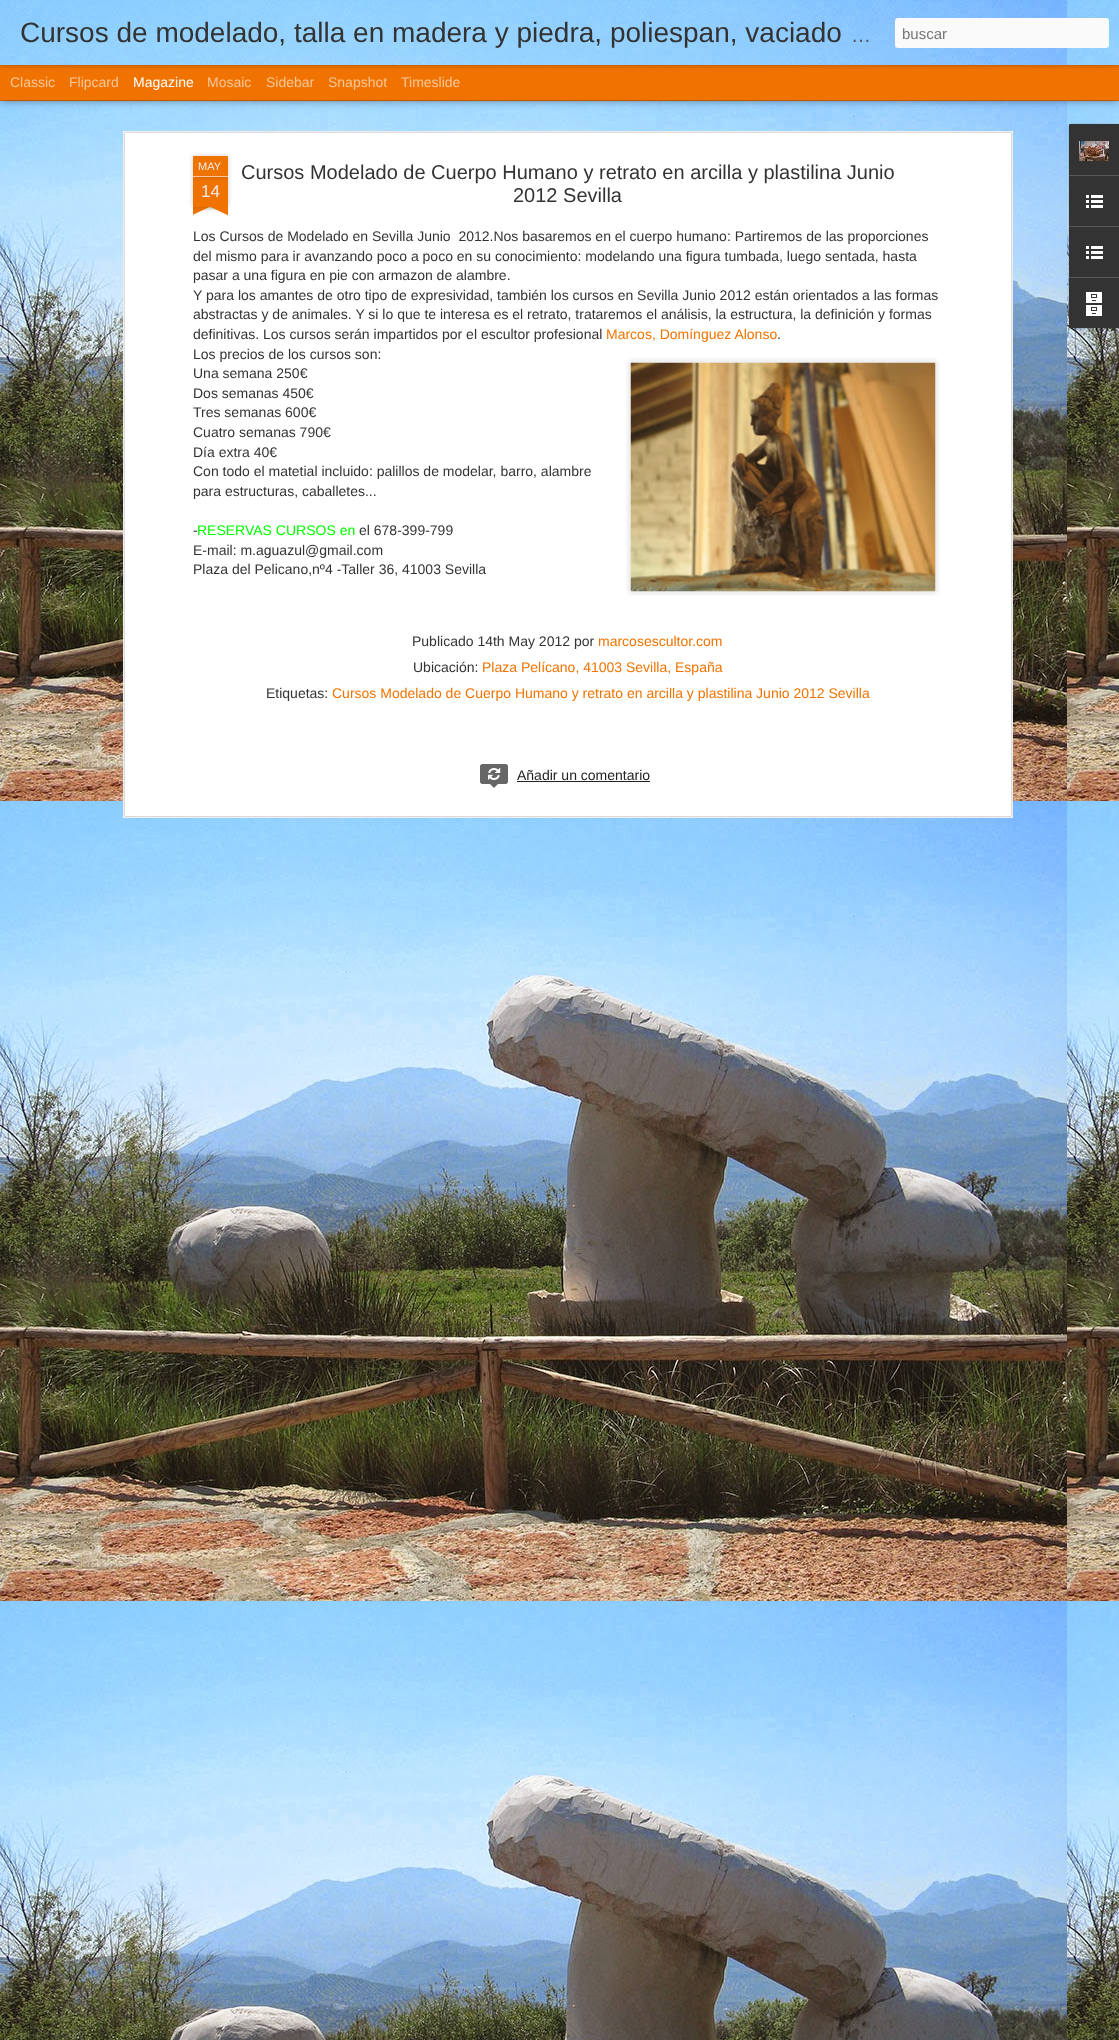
<!DOCTYPE html>
<meta charset="utf-8">
<style>body { margin: 0 } canvas { display: block }</style>
<canvas id="canvas" width="1119" height="2040"></canvas>
<img id="img1" src="images/2.png" hidden>
<img id="img2" src="images/1.png" hidden>
<img id="img3" src="images/3.png" hidden>
<img id="img4" src="images/4.png" hidden>
<img id="img5" src="images/5.png" hidden>
<img id="img6" src="images/6.png" hidden>
<img id="img7" src="images/7.png" hidden>
<img id="img8" src="images/8.png" hidden>
<img id="img9" src="images/9.png" hidden>
<script>
window.onload = function () {
    const canvas = document.getElementById('canvas');
    const context = canvas.getContext('2d');
    context.miterLimit = 4;
    context.fontKerning = 'normal';

    context.fillStyle = 'rgb(240, 115, 0)';
    context.fillRect(0, 0, 1119, 2040);
    context.drawImage(document.getElementById('img1'), 0, 101, 1119, 1939);
    context.fillStyle = 'rgba(0, 0, 0, 0.5)';
    context.filter = 'blur(4px)';
    context.beginPath();
    context.rect(0, 65, 1119, 35);
    context.fill();
    context.filter = 'none';
    context.fillStyle = 'rgb(240, 115, 0)';
    context.fillRect(0, 65, 1119, 35);
    context.fillStyle = 'rgba(0, 0, 0, 0.3)';
    context.filter = 'blur(2.5px)';
    context.beginPath();
    context.rect(0, 0, 1119, 65);
    context.fill();
    context.filter = 'none';
    context.drawImage(document.getElementById('img2'), 0, 0, 1119, 65);
    context.fillStyle = 'rgb(250, 250, 250)';
    context.beginPath();
    context.roundRect(895, 18, 214, 30, 3);
    context.fill();
    context.fillStyle = 'rgb(255, 255, 255)';
    context.fillRect(123, 131, 890, 687);
    context.drawImage(document.getElementById('img3'), 123, 131, 890, 687);
    context.fillStyle = 'rgba(0, 0, 0, 0.2)';
    context.filter = 'blur(2.5px)';
    context.beginPath();
    context.rect(193, 177, 35, 30);
    context.fill();
    context.filter = 'none';
    context.fillStyle = 'rgb(240, 115, 0)';
    context.fillRect(193, 177, 35, 30);
    context.fillStyle = 'rgba(0, 0, 0, 0.2)';
    context.filter = 'blur(2.5px)';
    context.beginPath();
    context.roundRect(193, 156, 35, 21, 1);
    context.fill();
    context.filter = 'none';
    context.fillStyle = 'rgb(240, 115, 0)';
    context.beginPath();
    context.roundRect(193, 156, 35, 21, [1, 1, 0, 0]);
    context.fill();
    context.fillStyle = 'rgb(249, 199, 153)';
    context.fillRect(193, 176, 35, 1);
    context.save();
    context.beginPath();
    context.rect(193, 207, 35, 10);
    context.clip();
    context.fillStyle = 'rgba(0, 0, 0, 0.2)';
    context.filter = 'blur(2.5px)';
    context.beginPath();
    context.rect(184, 197, 50, 10);
    context.fill();
    context.filter = 'none';
    context.restore();
    context.save();
    context.beginPath();
    context.rect(193, 207, 35, 10);
    context.clip();
    context.fillStyle = 'rgb(240, 115, 0)';
    context.beginPath();
    context.moveTo(184, 208);
    context.lineTo(229, 187);
    context.lineTo(233, 196);
    context.lineTo(188, 217);
    context.closePath();
    context.fill();
    context.restore();
    context.save();
    context.beginPath();
    context.rect(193, 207, 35, 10);
    context.clip();
    context.fillStyle = 'rgba(0, 0, 0, 0.2)';
    context.filter = 'blur(2.5px)';
    context.beginPath();
    context.rect(187, 197, 50, 10);
    context.fill();
    context.filter = 'none';
    context.restore();
    context.save();
    context.beginPath();
    context.rect(193, 207, 35, 10);
    context.clip();
    context.fillStyle = 'rgb(240, 115, 0)';
    context.beginPath();
    context.moveTo(191, 187);
    context.lineTo(236, 208);
    context.lineTo(232, 217);
    context.lineTo(187, 196);
    context.closePath();
    context.fill();
    context.restore();
    context.drawImage(document.getElementById('img4'), 626, 358, 314, 238);
    context.drawImage(document.getElementById('img5'), 630, 362, 306, 230);
    context.fillStyle = 'rgb(102, 102, 102)';
    context.beginPath();
    context.roundRect(480, 764, 28, 20, 3);
    context.fill();
    context.drawImage(document.getElementById('img6'), 488, 768, 13, 12);
    context.beginPath();
    context.roundRect(480.5, 764.5, 27, 19, 2.5);
    context.strokeStyle = 'rgb(102, 102, 102)';
    context.stroke();
    context.beginPath();
    context.moveTo(489, 783);
    context.lineTo(499, 783);
    context.lineTo(494, 788);
    context.closePath();
    context.fill();
    context.fillStyle = 'rgb(34, 34, 34)';
    context.fillRect(517, 781, 133, 1);
    context.fillStyle = 'rgba(0, 0, 0, 0.3)';
    context.filter = 'blur(1.5px)';
    context.beginPath();
    context.roundRect(1069, 125, 50, 204, 2);
    context.fill();
    context.filter = 'none';
    context.fillStyle = 'rgb(51, 51, 51)';
    context.beginPath();
    context.roundRect(1069, 124, 50, 204, [2, 0, 0, 2]);
    context.fill();
    context.beginPath();
    context.roundRect(1069, 124, 50, 51, [2, 0, 0, 0]);
    context.fill();
    context.drawImage(document.getElementById('img7'), 1079, 141, 30, 20);
    context.fillStyle = 'rgb(88, 88, 88)';
    context.fillRect(1069, 175, 50, 1);
    context.drawImage(document.getElementById('img8'), 1086, 195, 17, 13);
    context.fillRect(1069, 226, 50, 1);
    context.drawImage(document.getElementById('img8'), 1086, 246, 17, 13);
    context.fillStyle = 'rgb(51, 51, 51)';
    context.beginPath();
    context.roundRect(1069, 277, 50, 51, [0, 0, 0, 2]);
    context.fill();
    context.fillStyle = 'rgb(88, 88, 88)';
    context.fillRect(1069, 277, 50, 1);
    context.drawImage(document.getElementById('img9'), 1086, 292, 16, 24);
    context.font = '28px Liberation Sans';
    context.fillStyle = 'rgb(51, 51, 51)';
    context.fillText('Cursos de modelado, talla en madera y piedra, poliespan, vaciado', 20, 42);
    context.font = '20px Liberation Sans';
    context.fillStyle = 'rgb(85, 85, 85)';
    context.fillText('…', 851, 42);
    context.font = '15px Liberation Sans';
    context.fillStyle = 'rgb(117, 117, 117)';
    context.fillText('buscar', 902, 39);
    context.font = '14px Liberation Sans';
    context.fillStyle = 'rgb(249, 199, 153)';
    context.fillText('Classic', 10, 87);
    context.fillText('Flipcard', 69, 87);
    context.fillStyle = 'rgb(255, 255, 255)';
    context.fillText('Magazine', 133, 87);
    context.fillStyle = 'rgb(249, 199, 153)';
    context.fillText('Mosaic', 207, 87);
    context.fillText('Sidebar', 266, 87);
    context.fillText('Snapshot', 328, 87);
    context.fillText('Timeslide', 401, 87);
    context.font = '11px Liberation Sans';
    context.fillStyle = 'rgb(238, 238, 238)';
    context.fillText('MAY', 198, 170);
    context.font = '17px Liberation Sans';
    context.fillText('14', 201, 197);
    context.font = '20px Liberation Sans';
    context.fillStyle = 'rgb(51, 51, 51)';
    context.fillText('Cursos Modelado de Cuerpo Humano y retrato en arcilla y plastilina Junio', 241, 179);
    context.fillText('2012 Sevilla', 513, 202);
    context.font = '14px Liberation Sans';
    context.fillText('Los Cursos de Modelado en Sevilla Junio  2012.Nos basaremos en el cuerpo humano: Partiremos de las proporciones', 193, 241);
    context.fillText('del mismo para ir avanzando poco a poco en su conocimiento: modelando una figura tumbada, luego sentada, hasta', 193, 261);
    context.fillText('pasar a una figura en pie con armazon de alambre.', 193, 280);
    context.fillText('Y para los amantes de otro tipo de expresividad, también los cursos en Sevilla Junio 2012 están orientados a las formas', 193, 300);
    context.fillText('abstractas y de animales. Y si lo que te interesa es el retrato, trataremos el análisis, la estructura, la definición y formas', 193, 319);
    context.fillText('definitivas. Los cursos serán impartidos por el escultor profesional', 193, 339);
    context.fillStyle = 'rgb(240, 115, 0)';
    context.fillText('Marcos, Domínguez Alonso', 606, 339);
    context.fillStyle = 'rgb(51, 51, 51)';
    context.fillText('.', 777, 339);
    context.fillText('Los precios de los cursos son:', 193, 359);
    context.fillText('Una semana 250€', 193, 378);
    context.fillText('Dos semanas 450€', 193, 398);
    context.fillText('Tres semanas 600€', 193, 417);
    context.fillText('Cuatro semanas 790€', 193, 437);
    context.fillText('Día extra 40€', 193, 457);
    context.fillText('Con todo el matetial incluido: palillos de modelar, barro, alambre', 193, 476);
    context.fillText('para estructuras, caballetes...', 193, 496);
    context.fillText('-', 193, 535);
    context.fillStyle = 'rgb(0, 255, 0)';
    context.fillText('RESERVAS CURSOS en', 197, 535);
    context.fillStyle = 'rgb(51, 51, 51)';
    context.fillText('el 678-399-799', 359, 535);
    context.fillText('E-mail: m.aguazul@gmail.com', 193, 555);
    context.fillText('Plaza del Pelicano,nº4 -Taller 36, 41003 Sevilla', 193, 574);
    context.fillText('Publicado 14th May 2012 por', 412, 646);
    context.fillStyle = 'rgb(240, 115, 0)';
    context.fillText('marcosescultor.com', 598, 646);
    context.fillStyle = 'rgb(51, 51, 51)';
    context.fillText('Ubicación:', 413, 672);
    context.fillStyle = 'rgb(240, 115, 0)';
    context.fillText('Plaza Pelícano, 41003 Sevilla, España', 482, 672);
    context.fillStyle = 'rgb(51, 51, 51)';
    context.fillText('Etiquetas:', 266, 698);
    context.fillStyle = 'rgb(240, 115, 0)';
    context.fillText('Cursos Modelado de Cuerpo Humano y retrato en arcilla y plastilina Junio 2012 Sevilla', 332, 698);
    context.fillStyle = 'rgb(34, 34, 34)';
    context.fillText('Añadir un comentario', 517, 780);
};
</script>
